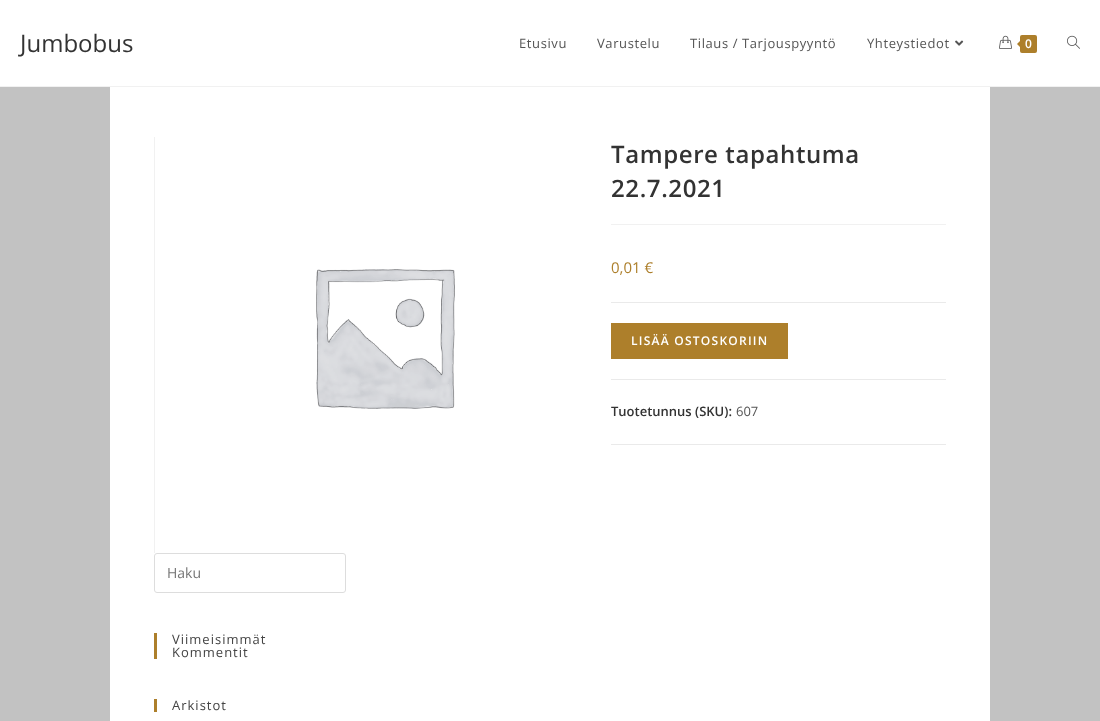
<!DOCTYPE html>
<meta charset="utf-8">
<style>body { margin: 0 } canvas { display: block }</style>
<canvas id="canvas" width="1100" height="721"></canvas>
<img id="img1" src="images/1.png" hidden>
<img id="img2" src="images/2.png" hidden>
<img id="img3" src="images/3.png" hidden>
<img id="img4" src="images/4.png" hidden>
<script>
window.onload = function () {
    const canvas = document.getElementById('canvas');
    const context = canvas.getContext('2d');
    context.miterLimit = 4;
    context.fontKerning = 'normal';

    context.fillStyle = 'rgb(194, 194, 194)';
    context.fillRect(0, 0, 1100, 721);
    context.fillStyle = 'rgb(255, 255, 255)';
    context.fillRect(0, 0, 1100, 86);
    context.fillStyle = 'rgb(241, 241, 241)';
    context.fillRect(0, 86, 1100, 1);
    context.drawImage(document.getElementById('img1'), 955, 40, 9, 6);
    context.drawImage(document.getElementById('img2'), 999, 35, 13, 14);
    context.fillStyle = 'rgb(173, 127, 43)';
    context.beginPath();
    context.roundRect(1020, 35, 17, 18, 2);
    context.fill();
    context.beginPath();
    context.moveTo(1022, 39);
    context.lineTo(1022, 49);
    context.lineTo(1017, 44);
    context.closePath();
    context.fill();
    context.drawImage(document.getElementById('img3'), 1067, 35, 13, 14);
    context.fillStyle = 'rgb(255, 255, 255)';
    context.fillRect(110, 87, 880, 634);
    context.fillStyle = 'rgb(241, 241, 241)';
    context.fillRect(154, 137, 1, 416);
    context.drawImage(document.getElementById('img4'), 316, 269, 139, 140);
    context.fillRect(611, 224, 335, 1);
    context.fillStyle = 'rgb(234, 234, 234)';
    context.fillRect(611, 302, 335, 1);
    context.fillRect(611, 379, 335, 1);
    context.fillStyle = 'rgb(173, 127, 43)';
    context.fillRect(611, 323, 177, 36);
    context.fillStyle = 'rgb(234, 234, 234)';
    context.fillRect(611, 444, 335, 1);
    context.beginPath();
    context.roundRect(154.5, 553.5, 191, 39, 2.5);
    context.strokeStyle = 'rgb(221, 221, 221)';
    context.stroke();
    context.fillStyle = 'rgb(173, 127, 43)';
    context.fillRect(154, 633, 3, 26);
    context.fillRect(154, 699, 3, 13);
    context.font = '24px Open Sans';
    context.fillStyle = 'rgb(51, 51, 51)';
    context.fillText('Jumbobus', 20, 52);
    context.letterSpacing = '0.6px';
    context.font = '13px Open Sans';
    context.fillStyle = 'rgb(85, 85, 85)';
    context.fillText('Etusivu', 519, 48);
    context.fillText('Varustelu', 597, 48);
    context.fillText('Tilaus / Tarjouspyyntö', 690, 48);
    context.fillText('Yhteystiedot', 867, 48);
    context.letterSpacing = '0px';
    context.font = '600 12px Open Sans';
    context.fillStyle = 'rgb(255, 255, 255)';
    context.fillText('0', 1025, 48);
    context.letterSpacing = '0.6px';
    context.font = '600 24px Open Sans';
    context.fillStyle = 'rgb(51, 51, 51)';
    context.fillText('Tampere tapahtuma', 611, 163);
    context.fillText('22.7.2021', 611, 197);
    context.letterSpacing = '0px';
    context.font = '15px Open Sans';
    context.fillStyle = 'rgb(173, 127, 43)';
    context.fillText('0,01 €', 611, 273);
    context.letterSpacing = '1.25px';
    context.font = '600 12px Open Sans';
    context.fillStyle = 'rgb(255, 255, 255)';
    context.fillText('LISÄÄ OSTOSKORIIN', 631, 345);
    context.letterSpacing = '0px';
    context.font = '600 13px Open Sans';
    context.fillStyle = 'rgb(51, 51, 51)';
    context.fillText('Tuotetunnus (SKU):', 611, 416);
    context.font = '13px Open Sans';
    context.fillStyle = 'rgb(85, 85, 85)';
    context.fillText('607', 736, 416);
    context.font = '14px Open Sans';
    context.fillStyle = 'rgb(117, 117, 117)';
    context.fillText('Haku', 167, 578);
    context.letterSpacing = '1px';
    context.font = '13px Open Sans';
    context.fillStyle = 'rgb(68, 68, 68)';
    context.fillText('Viimeisimmät', 172, 644);
    context.fillText('Kommentit', 172, 657);
    context.fillText('Arkistot', 172, 710);
};
</script>
